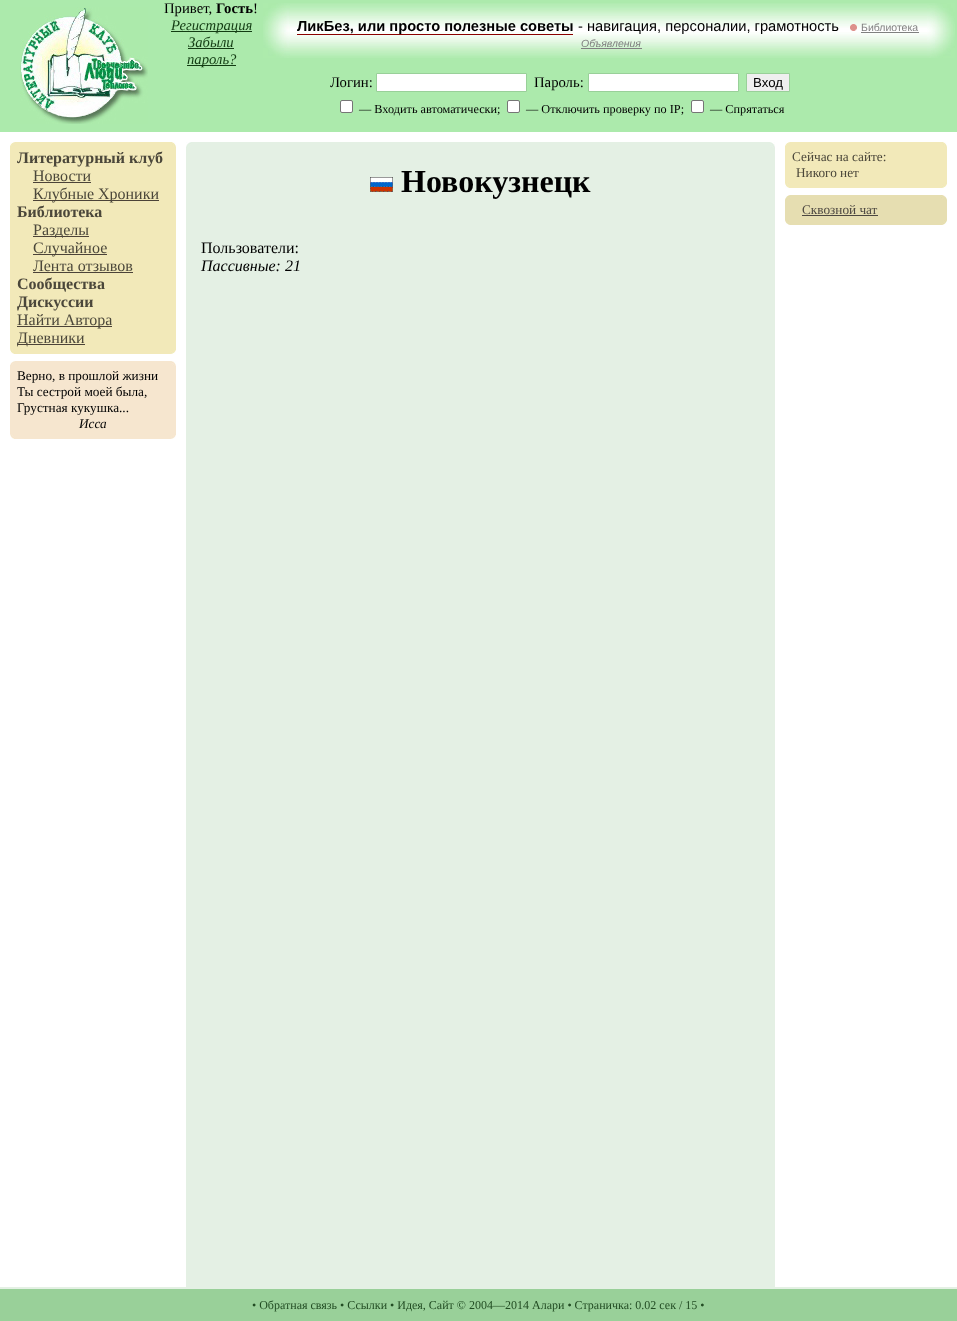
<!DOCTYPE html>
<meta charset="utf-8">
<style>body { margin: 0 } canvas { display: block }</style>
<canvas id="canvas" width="957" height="1321"></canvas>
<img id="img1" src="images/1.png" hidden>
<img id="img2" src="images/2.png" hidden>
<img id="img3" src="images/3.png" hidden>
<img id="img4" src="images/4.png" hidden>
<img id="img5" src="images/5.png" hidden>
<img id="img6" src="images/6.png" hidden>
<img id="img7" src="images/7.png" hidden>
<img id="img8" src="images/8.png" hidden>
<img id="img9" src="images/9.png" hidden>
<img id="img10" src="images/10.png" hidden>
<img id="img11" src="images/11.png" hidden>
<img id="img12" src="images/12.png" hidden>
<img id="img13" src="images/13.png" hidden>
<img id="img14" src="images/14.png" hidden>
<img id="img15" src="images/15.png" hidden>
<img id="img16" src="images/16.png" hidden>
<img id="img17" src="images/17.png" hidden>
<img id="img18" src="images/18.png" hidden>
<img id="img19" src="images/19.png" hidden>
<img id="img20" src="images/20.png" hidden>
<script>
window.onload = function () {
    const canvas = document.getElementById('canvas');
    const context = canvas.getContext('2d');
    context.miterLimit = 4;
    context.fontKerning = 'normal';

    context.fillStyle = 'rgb(255, 255, 255)';
    context.fillRect(0, 0, 957, 1321);
    context.fillStyle = 'rgb(172, 234, 172)';
    context.fillRect(0, 0, 957, 132);
    context.drawImage(document.getElementById('img1'), 20, 7, 128, 117);
    context.fillStyle = 'rgb(19, 60, 19)';
    context.fillRect(171, 31, 81, 1);
    context.fillRect(188, 48, 46, 1);
    context.fillRect(187, 65, 49, 1);
    context.drawImage(document.getElementById('img2'), 263, 3, 27, 55);
    context.drawImage(document.getElementById('img3'), 290, 3, 637, 55);
    context.fillStyle = 'rgb(139, 0, 0)';
    context.fillRect(297, 34, 276, 1);
    context.drawImage(document.getElementById('img4'), 850, 24, 7, 7);
    context.fillStyle = 'rgb(128, 128, 128)';
    context.fillRect(861, 32, 58, 1);
    context.fillRect(581, 48, 61, 1);
    context.drawImage(document.getElementById('img5'), 927, 3, 28, 55);
    context.fillStyle = 'rgb(255, 255, 255)';
    context.beginPath();
    context.rect(376.5, 73.5, 150, 18);
    context.fill();
    context.strokeStyle = 'rgb(153, 208, 153)';
    context.stroke();
    context.beginPath();
    context.rect(588.5, 73.5, 150, 18);
    context.fill();
    context.stroke();
    context.fillStyle = 'rgb(239, 239, 239)';
    context.beginPath();
    context.rect(746.5, 73.5, 43, 18);
    context.fill();
    context.stroke();
    context.fillStyle = 'rgb(255, 255, 255)';
    context.beginPath();
    context.roundRect(340.5, 100.5, 12, 12, 1.5);
    context.fill();
    context.strokeStyle = 'rgb(118, 118, 118)';
    context.stroke();
    context.beginPath();
    context.roundRect(507.5, 100.5, 12, 12, 1.5);
    context.fill();
    context.stroke();
    context.beginPath();
    context.roundRect(691.5, 100.5, 12, 12, 1.5);
    context.fill();
    context.stroke();
    context.fillStyle = 'rgb(242, 233, 185)';
    context.fillRect(10, 142, 166, 212);
    context.drawImage(document.getElementById('img6'), 10, 142, 5, 4);
    context.drawImage(document.getElementById('img7'), 172, 142, 4, 5);
    context.fillStyle = 'rgb(76, 67, 56)';
    context.fillRect(33, 182, 58, 1);
    context.fillRect(33, 200, 126, 1);
    context.fillRect(33, 236, 56, 1);
    context.fillRect(33, 254, 74, 1);
    context.fillRect(33, 272, 100, 1);
    context.fillRect(17, 326, 95, 1);
    context.fillRect(17, 344, 68, 1);
    context.drawImage(document.getElementById('img8'), 10, 349, 4, 5);
    context.drawImage(document.getElementById('img9'), 171, 350, 5, 4);
    context.fillStyle = 'rgb(246, 230, 207)';
    context.fillRect(10, 361, 166, 78);
    context.drawImage(document.getElementById('img10'), 10, 361, 5, 4);
    context.drawImage(document.getElementById('img11'), 171, 361, 5, 5);
    context.drawImage(document.getElementById('img12'), 10, 434, 4, 5);
    context.drawImage(document.getElementById('img13'), 171, 435, 5, 4);
    context.fillStyle = 'rgb(228, 240, 228)';
    context.fillRect(186, 142, 589, 1145);
    context.drawImage(document.getElementById('img14'), 186, 142, 5, 5);
    context.drawImage(document.getElementById('img15'), 770, 142, 5, 6);
    context.drawImage(document.getElementById('img16'), 370, 177, 23, 15);
    context.fillStyle = 'rgb(242, 233, 185)';
    context.fillRect(785, 142, 162, 46);
    context.drawImage(document.getElementById('img6'), 785, 142, 5, 4);
    context.drawImage(document.getElementById('img7'), 943, 142, 4, 5);
    context.drawImage(document.getElementById('img8'), 785, 183, 4, 5);
    context.drawImage(document.getElementById('img9'), 942, 184, 5, 4);
    context.fillStyle = 'rgb(230, 222, 177)';
    context.fillRect(785, 195, 162, 30);
    context.drawImage(document.getElementById('img17'), 785, 195, 6, 5);
    context.drawImage(document.getElementById('img18'), 941, 195, 6, 5);
    context.fillStyle = 'rgb(77, 72, 65)';
    context.fillRect(802, 215, 76, 1);
    context.drawImage(document.getElementById('img19'), 785, 220, 5, 5);
    context.drawImage(document.getElementById('img20'), 942, 220, 5, 5);
    context.fillStyle = 'rgb(153, 208, 153)';
    context.fillRect(0, 1289, 957, 32);
    context.fillStyle = 'rgb(228, 240, 228)';
    context.fillRect(0, 1287, 957, 2);
    context.font = '14.7px Liberation Serif';
    context.fillStyle = 'rgb(0, 0, 0)';
    context.fillText('Привет,', 164, 13);
    context.font = 'bold 14.7px Liberation Serif';
    context.fillText('Гость', 216, 13);
    context.font = '14.7px Liberation Serif';
    context.fillText('!', 253, 13);
    context.font = 'italic 14.7px Liberation Serif';
    context.fillStyle = 'rgb(19, 60, 19)';
    context.fillText('Регистрация', 171, 30);
    context.fillText('Забыли', 188, 47);
    context.fillText('пароль?', 187, 64);
    context.font = 'bold 14.7px Liberation Sans';
    context.fillStyle = 'rgb(0, 0, 0)';
    context.fillText('ЛикБез, или просто полезные советы', 297, 31);
    context.font = '14.7px Liberation Sans';
    context.fillText('- навигация, персоналии, грамотность', 578, 31);
    context.font = '10.5px Liberation Sans';
    context.fillStyle = 'rgb(128, 128, 128)';
    context.fillText('Библиотека', 861, 31);
    context.font = 'italic 10.5px Liberation Sans';
    context.fillText('Объявления', 581, 47);
    context.font = '14.7px Liberation Serif';
    context.fillStyle = 'rgb(0, 0, 0)';
    context.fillText('Логин:', 330, 87);
    context.fillText('Пароль:', 534, 87);
    context.font = '13.25px Liberation Sans';
    context.fillText('Вход', 753, 87);
    context.font = '12.25px Liberation Serif';
    context.fillText('— Входить автоматически;', 359, 113);
    context.fillText('— Отключить проверку по IP;', 526, 113);
    context.fillText('— Спрятаться', 710, 113);
    context.font = 'bold 16px Liberation Serif';
    context.fillStyle = 'rgb(75, 71, 58)';
    context.fillText('Литературный клуб', 17, 163);
    context.font = '16px Liberation Serif';
    context.fillText('Новости', 33, 181);
    context.fillText('Клубные Хроники', 33, 199);
    context.font = 'bold 16px Liberation Serif';
    context.fillText('Библиотека', 17, 217);
    context.font = '16px Liberation Serif';
    context.fillText('Разделы', 33, 235);
    context.fillText('Случайное', 33, 253);
    context.fillText('Лента отзывов', 33, 271);
    context.font = 'bold 16px Liberation Serif';
    context.fillText('Сообщества', 17, 289);
    context.fillText('Дискуссии', 17, 307);
    context.font = '16px Liberation Serif';
    context.fillText('Найти Автора', 17, 325);
    context.fillText('Дневники', 17, 343);
    context.font = '13.25px Liberation Serif';
    context.fillStyle = 'rgb(0, 0, 0)';
    context.fillText('Верно, в прошлой жизни', 17, 380);
    context.fillText('Ты сестрой моей была,', 17, 396);
    context.fillText('Грустная кукушка...', 17, 412);
    context.font = 'italic 13.25px Liberation Serif';
    context.fillText('Исса', 79, 428);
    context.font = 'bold 32px Liberation Serif';
    context.fillText('Новокузнецк', 401, 192);
    context.font = '16px Liberation Serif';
    context.fillText('Пользователи:', 201, 253);
    context.font = 'italic 16px Liberation Serif';
    context.fillText('Пассивные: 21', 201, 271);
    context.font = '13.25px Liberation Serif';
    context.fillStyle = 'rgb(75, 71, 58)';
    context.fillText('Сейчас на сайте:', 792, 161);
    context.fillText('Никого нет', 796, 177);
    context.fillStyle = 'rgb(77, 72, 65)';
    context.fillText('Сквозной чат', 802, 214);
    context.font = '12px Liberation Serif';
    context.fillStyle = 'rgb(34, 76, 35)';
    context.fillText('• Обратная связь • Ссылки • Идея, Сайт © 2004—2014 Алари • Страничка: 0.02 сек / 15 •', 252, 1309);
};
</script>
